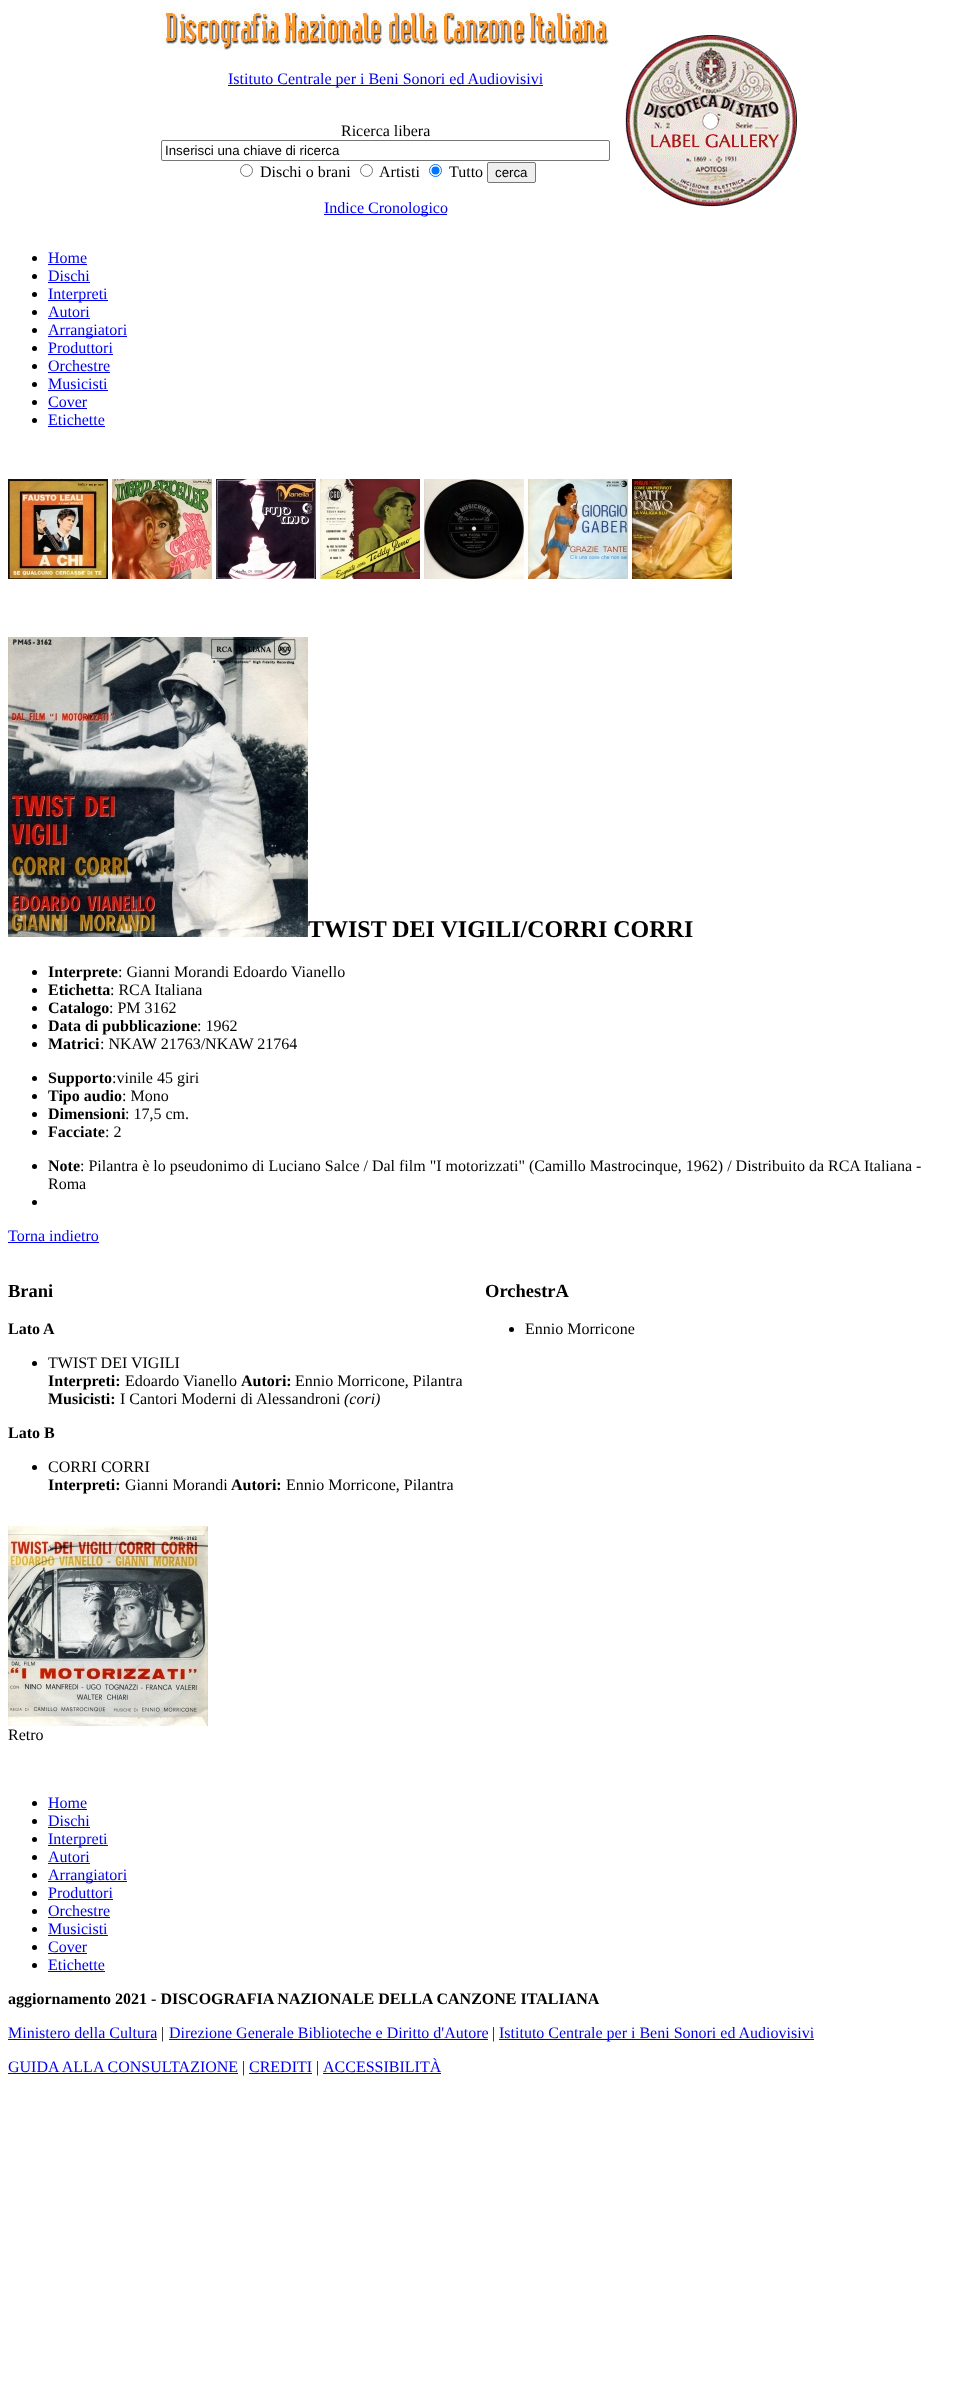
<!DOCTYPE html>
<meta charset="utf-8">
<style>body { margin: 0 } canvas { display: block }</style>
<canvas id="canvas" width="969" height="2382"></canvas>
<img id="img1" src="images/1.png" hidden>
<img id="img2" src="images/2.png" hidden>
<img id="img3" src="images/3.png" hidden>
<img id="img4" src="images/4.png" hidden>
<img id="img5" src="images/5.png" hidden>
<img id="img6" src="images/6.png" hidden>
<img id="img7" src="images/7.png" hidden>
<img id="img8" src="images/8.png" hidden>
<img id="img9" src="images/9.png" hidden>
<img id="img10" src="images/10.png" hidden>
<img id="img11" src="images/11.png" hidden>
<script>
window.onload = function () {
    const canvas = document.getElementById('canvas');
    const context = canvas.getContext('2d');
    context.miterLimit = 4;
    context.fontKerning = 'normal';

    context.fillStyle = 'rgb(255, 255, 255)';
    context.fillRect(0, 0, 969, 2382);
    context.drawImage(document.getElementById('img1'), 161, 8, 448, 42);
    context.fillStyle = 'rgb(0, 0, 238)';
    context.fillRect(228, 85, 315, 1);
    context.beginPath();
    context.roundRect(161.5, 140.5, 448, 20, 1.5);
    context.strokeStyle = 'rgb(118, 118, 118)';
    context.stroke();
    context.beginPath();
    context.arc(246.5, 170.5, 6, 0, 2 * Math.PI);
    context.stroke();
    context.beginPath();
    context.arc(366.5, 170.5, 6, 0, 2 * Math.PI);
    context.stroke();
    context.beginPath();
    context.arc(435.5, 170.5, 6, 0, 2 * Math.PI);
    context.strokeStyle = 'rgb(0, 117, 255)';
    context.stroke();
    context.fillStyle = 'rgb(0, 117, 255)';
    context.beginPath();
    context.arc(435.5, 170.5, 4, 0, 2 * Math.PI);
    context.fill();
    context.fillStyle = 'rgb(239, 239, 239)';
    context.beginPath();
    context.roundRect(487.5, 162.5, 48, 20, 1.5);
    context.fill();
    context.strokeStyle = 'rgb(118, 118, 118)';
    context.stroke();
    context.fillStyle = 'rgb(0, 0, 238)';
    context.fillRect(324, 214, 123, 1);
    context.drawImage(document.getElementById('img2'), 625, 35, 172, 172);
    context.fillStyle = 'rgb(0, 0, 0)';
    context.beginPath();
    context.arc(34.5, 258.5, 2.5, 0, 2 * Math.PI);
    context.fill();
    context.fillStyle = 'rgb(0, 0, 238)';
    context.fillRect(48, 264, 39, 1);
    context.fillStyle = 'rgb(0, 0, 0)';
    context.beginPath();
    context.arc(34.5, 276.5, 2.5, 0, 2 * Math.PI);
    context.fill();
    context.fillStyle = 'rgb(0, 0, 238)';
    context.fillRect(48, 282, 42, 1);
    context.fillStyle = 'rgb(0, 0, 0)';
    context.beginPath();
    context.arc(34.5, 294.5, 2.5, 0, 2 * Math.PI);
    context.fill();
    context.fillStyle = 'rgb(0, 0, 238)';
    context.fillRect(48, 300, 60, 1);
    context.fillStyle = 'rgb(0, 0, 0)';
    context.beginPath();
    context.arc(34.5, 312.5, 2.5, 0, 2 * Math.PI);
    context.fill();
    context.fillStyle = 'rgb(0, 0, 238)';
    context.fillRect(48, 318, 42, 1);
    context.fillStyle = 'rgb(0, 0, 0)';
    context.beginPath();
    context.arc(34.5, 330.5, 2.5, 0, 2 * Math.PI);
    context.fill();
    context.fillStyle = 'rgb(0, 0, 238)';
    context.fillRect(48, 336, 79, 1);
    context.fillStyle = 'rgb(0, 0, 0)';
    context.beginPath();
    context.arc(34.5, 348.5, 2.5, 0, 2 * Math.PI);
    context.fill();
    context.fillStyle = 'rgb(0, 0, 238)';
    context.fillRect(48, 354, 65, 1);
    context.fillStyle = 'rgb(0, 0, 0)';
    context.beginPath();
    context.arc(34.5, 366.5, 2.5, 0, 2 * Math.PI);
    context.fill();
    context.fillStyle = 'rgb(0, 0, 238)';
    context.fillRect(48, 372, 62, 1);
    context.fillStyle = 'rgb(0, 0, 0)';
    context.beginPath();
    context.arc(34.5, 384.5, 2.5, 0, 2 * Math.PI);
    context.fill();
    context.fillStyle = 'rgb(0, 0, 238)';
    context.fillRect(48, 390, 60, 1);
    context.fillStyle = 'rgb(0, 0, 0)';
    context.beginPath();
    context.arc(34.5, 402.5, 2.5, 0, 2 * Math.PI);
    context.fill();
    context.fillStyle = 'rgb(0, 0, 238)';
    context.fillRect(48, 408, 39, 1);
    context.fillStyle = 'rgb(0, 0, 0)';
    context.beginPath();
    context.arc(34.5, 420.5, 2.5, 0, 2 * Math.PI);
    context.fill();
    context.fillStyle = 'rgb(0, 0, 238)';
    context.fillRect(48, 426, 57, 1);
    context.drawImage(document.getElementById('img3'), 8, 479, 100, 100);
    context.drawImage(document.getElementById('img4'), 112, 479, 100, 100);
    context.drawImage(document.getElementById('img5'), 216, 479, 100, 100);
    context.drawImage(document.getElementById('img6'), 320, 479, 100, 100);
    context.drawImage(document.getElementById('img7'), 424, 479, 100, 100);
    context.drawImage(document.getElementById('img8'), 528, 479, 100, 100);
    context.drawImage(document.getElementById('img9'), 632, 479, 100, 100);
    context.drawImage(document.getElementById('img10'), 8, 637, 300, 300);
    context.fillStyle = 'rgb(0, 0, 0)';
    context.beginPath();
    context.arc(34.5, 972.5, 2.5, 0, 2 * Math.PI);
    context.fill();
    context.beginPath();
    context.arc(34.5, 990.5, 2.5, 0, 2 * Math.PI);
    context.fill();
    context.beginPath();
    context.arc(34.5, 1008.5, 2.5, 0, 2 * Math.PI);
    context.fill();
    context.beginPath();
    context.arc(34.5, 1026.5, 2.5, 0, 2 * Math.PI);
    context.fill();
    context.beginPath();
    context.arc(34.5, 1044.5, 2.5, 0, 2 * Math.PI);
    context.fill();
    context.beginPath();
    context.arc(34.5, 1078.5, 2.5, 0, 2 * Math.PI);
    context.fill();
    context.beginPath();
    context.arc(34.5, 1096.5, 2.5, 0, 2 * Math.PI);
    context.fill();
    context.beginPath();
    context.arc(34.5, 1114.5, 2.5, 0, 2 * Math.PI);
    context.fill();
    context.beginPath();
    context.arc(34.5, 1132.5, 2.5, 0, 2 * Math.PI);
    context.fill();
    context.beginPath();
    context.arc(34.5, 1166.5, 2.5, 0, 2 * Math.PI);
    context.fill();
    context.beginPath();
    context.arc(34.5, 1202.5, 2.5, 0, 2 * Math.PI);
    context.fill();
    context.fillStyle = 'rgb(0, 0, 238)';
    context.fillRect(8, 1242, 91, 1);
    context.fillStyle = 'rgb(0, 0, 0)';
    context.beginPath();
    context.arc(34.5, 1363.5, 2.5, 0, 2 * Math.PI);
    context.fill();
    context.beginPath();
    context.arc(34.5, 1467.5, 2.5, 0, 2 * Math.PI);
    context.fill();
    context.beginPath();
    context.arc(511.5, 1329.5, 2.5, 0, 2 * Math.PI);
    context.fill();
    context.drawImage(document.getElementById('img11'), 8, 1526, 200, 200);
    context.beginPath();
    context.arc(34.5, 1803.5, 2.5, 0, 2 * Math.PI);
    context.fill();
    context.fillStyle = 'rgb(0, 0, 238)';
    context.fillRect(48, 1809, 39, 1);
    context.fillStyle = 'rgb(0, 0, 0)';
    context.beginPath();
    context.arc(34.5, 1821.5, 2.5, 0, 2 * Math.PI);
    context.fill();
    context.fillStyle = 'rgb(0, 0, 238)';
    context.fillRect(48, 1827, 42, 1);
    context.fillStyle = 'rgb(0, 0, 0)';
    context.beginPath();
    context.arc(34.5, 1839.5, 2.5, 0, 2 * Math.PI);
    context.fill();
    context.fillStyle = 'rgb(0, 0, 238)';
    context.fillRect(48, 1845, 60, 1);
    context.fillStyle = 'rgb(0, 0, 0)';
    context.beginPath();
    context.arc(34.5, 1857.5, 2.5, 0, 2 * Math.PI);
    context.fill();
    context.fillStyle = 'rgb(0, 0, 238)';
    context.fillRect(48, 1863, 42, 1);
    context.fillStyle = 'rgb(0, 0, 0)';
    context.beginPath();
    context.arc(34.5, 1875.5, 2.5, 0, 2 * Math.PI);
    context.fill();
    context.fillStyle = 'rgb(0, 0, 238)';
    context.fillRect(48, 1881, 79, 1);
    context.fillStyle = 'rgb(0, 0, 0)';
    context.beginPath();
    context.arc(34.5, 1893.5, 2.5, 0, 2 * Math.PI);
    context.fill();
    context.fillStyle = 'rgb(0, 0, 238)';
    context.fillRect(48, 1899, 65, 1);
    context.fillStyle = 'rgb(0, 0, 0)';
    context.beginPath();
    context.arc(34.5, 1911.5, 2.5, 0, 2 * Math.PI);
    context.fill();
    context.fillStyle = 'rgb(0, 0, 238)';
    context.fillRect(48, 1917, 62, 1);
    context.fillStyle = 'rgb(0, 0, 0)';
    context.beginPath();
    context.arc(34.5, 1929.5, 2.5, 0, 2 * Math.PI);
    context.fill();
    context.fillStyle = 'rgb(0, 0, 238)';
    context.fillRect(48, 1935, 60, 1);
    context.fillStyle = 'rgb(0, 0, 0)';
    context.beginPath();
    context.arc(34.5, 1947.5, 2.5, 0, 2 * Math.PI);
    context.fill();
    context.fillStyle = 'rgb(0, 0, 238)';
    context.fillRect(48, 1953, 39, 1);
    context.fillStyle = 'rgb(0, 0, 0)';
    context.beginPath();
    context.arc(34.5, 1965.5, 2.5, 0, 2 * Math.PI);
    context.fill();
    context.fillStyle = 'rgb(0, 0, 238)';
    context.fillRect(48, 1971, 57, 1);
    context.fillRect(8, 2039, 149, 1);
    context.fillRect(169, 2039, 319, 1);
    context.fillRect(499, 2039, 315, 1);
    context.fillRect(8, 2073, 230, 1);
    context.fillRect(249, 2073, 63, 1);
    context.fillRect(323, 2073, 118, 1);
    context.font = '16px Liberation Serif';
    context.fillText('Istituto Centrale per i Beni Sonori ed Audiovisivi', 228, 84);
    context.fillStyle = 'rgb(0, 0, 0)';
    context.fillText('Ricerca libera', 341, 136);
    context.font = '13.3px Liberation Sans';
    context.fillText('Inserisci una chiave di ricerca', 165, 155);
    context.font = '16px Liberation Serif';
    context.fillText('Dischi o brani', 260, 177);
    context.fillText('Artisti', 379, 177);
    context.fillText('Tutto', 449, 177);
    context.font = '13.3px Liberation Sans';
    context.fillText('cerca', 495, 177);
    context.font = '16px Liberation Serif';
    context.fillStyle = 'rgb(0, 0, 238)';
    context.fillText('Indice Cronologico', 324, 213);
    context.fillText('Home', 48, 263);
    context.fillText('Dischi', 48, 281);
    context.fillText('Interpreti', 48, 299);
    context.fillText('Autori', 48, 317);
    context.fillText('Arrangiatori', 48, 335);
    context.fillText('Produttori', 48, 353);
    context.fillText('Orchestre', 48, 371);
    context.fillText('Musicisti', 48, 389);
    context.fillText('Cover', 48, 407);
    context.fillText('Etichette', 48, 425);
    context.font = 'bold 24px Liberation Serif';
    context.fillStyle = 'rgb(0, 0, 0)';
    context.fillText('TWIST DEI VIGILI/CORRI CORRI', 308, 937);
    context.font = 'bold 16px Liberation Serif';
    context.fillText('Interprete', 48, 977);
    context.font = '16px Liberation Serif';
    context.fillText(': Gianni Morandi Edoardo Vianello', 118, 977);
    context.font = 'bold 16px Liberation Serif';
    context.fillText('Etichetta', 48, 995);
    context.font = '16px Liberation Serif';
    context.fillText(': RCA Italiana', 110, 995);
    context.font = 'bold 16px Liberation Serif';
    context.fillText('Catalogo', 48, 1013);
    context.font = '16px Liberation Serif';
    context.fillText(': PM 3162', 109, 1013);
    context.font = 'bold 16px Liberation Serif';
    context.fillText('Data di pubblicazione', 48, 1031);
    context.font = '16px Liberation Serif';
    context.fillText(': 1962', 197, 1031);
    context.font = 'bold 16px Liberation Serif';
    context.fillText('Matrici', 48, 1049);
    context.font = '16px Liberation Serif';
    context.fillText(': NKAW 21763/NKAW 21764', 100, 1049);
    context.font = 'bold 16px Liberation Serif';
    context.fillText('Supporto', 48, 1083);
    context.font = '16px Liberation Serif';
    context.fillText(':vinile 45 giri', 112, 1083);
    context.font = 'bold 16px Liberation Serif';
    context.fillText('Tipo audio', 48, 1101);
    context.font = '16px Liberation Serif';
    context.fillText(': Mono', 122, 1101);
    context.font = 'bold 16px Liberation Serif';
    context.fillText('Dimensioni', 48, 1119);
    context.font = '16px Liberation Serif';
    context.fillText(': 17,5 cm.', 125, 1119);
    context.font = 'bold 16px Liberation Serif';
    context.fillText('Facciate', 48, 1137);
    context.font = '16px Liberation Serif';
    context.fillText(': 2', 105, 1137);
    context.font = 'bold 16px Liberation Serif';
    context.fillText('Note', 48, 1171);
    context.font = '16px Liberation Serif';
    context.fillText(': Pilantra è lo pseudonimo di Luciano Salce / Dal film "I motorizzati" (Camillo Mastrocinque, 1962) / Distribuito da RCA Italiana -', 80, 1171);
    context.fillText('Roma', 48, 1189);
    context.fillStyle = 'rgb(0, 0, 238)';
    context.fillText('Torna indietro', 8, 1241);
    context.font = 'bold 18.5px Liberation Serif';
    context.fillStyle = 'rgb(0, 0, 0)';
    context.fillText('Brani', 8, 1297);
    context.font = 'bold 16px Liberation Serif';
    context.fillText('Lato A', 8, 1334);
    context.font = '16px Liberation Serif';
    context.fillText('TWIST DEI VIGILI', 48, 1368);
    context.font = 'bold 16px Liberation Serif';
    context.fillText('Interpreti:', 48, 1386);
    context.font = '16px Liberation Serif';
    context.fillText('Edoardo Vianello', 125, 1386);
    context.font = 'bold 16px Liberation Serif';
    context.fillText('Autori:', 241, 1386);
    context.font = '16px Liberation Serif';
    context.fillText('Ennio Morricone, Pilantra', 295, 1386);
    context.font = 'bold 16px Liberation Serif';
    context.fillText('Musicisti:', 48, 1404);
    context.font = '16px Liberation Serif';
    context.fillText('I Cantori Moderni di Alessandroni', 120, 1404);
    context.font = 'italic 16px Liberation Serif';
    context.fillText('(cori)', 344, 1404);
    context.font = 'bold 16px Liberation Serif';
    context.fillText('Lato B', 8, 1438);
    context.font = '16px Liberation Serif';
    context.fillText('CORRI CORRI', 48, 1472);
    context.font = 'bold 16px Liberation Serif';
    context.fillText('Interpreti:', 48, 1490);
    context.font = '16px Liberation Serif';
    context.fillText('Gianni Morandi', 125, 1490);
    context.font = 'bold 16px Liberation Serif';
    context.fillText('Autori:', 231, 1490);
    context.font = '16px Liberation Serif';
    context.fillText('Ennio Morricone, Pilantra', 286, 1490);
    context.font = 'bold 18.5px Liberation Serif';
    context.fillText('OrchestrA', 485, 1297);
    context.font = '16px Liberation Serif';
    context.fillText('Ennio Morricone', 525, 1334);
    context.fillText('Retro', 8, 1740);
    context.fillStyle = 'rgb(0, 0, 238)';
    context.fillText('Home', 48, 1808);
    context.fillText('Dischi', 48, 1826);
    context.fillText('Interpreti', 48, 1844);
    context.fillText('Autori', 48, 1862);
    context.fillText('Arrangiatori', 48, 1880);
    context.fillText('Produttori', 48, 1898);
    context.fillText('Orchestre', 48, 1916);
    context.fillText('Musicisti', 48, 1934);
    context.fillText('Cover', 48, 1952);
    context.fillText('Etichette', 48, 1970);
    context.font = 'bold 16px Liberation Serif';
    context.fillStyle = 'rgb(0, 0, 0)';
    context.fillText('aggiornamento 2021 - DISCOGRAFIA NAZIONALE DELLA CANZONE ITALIANA', 8, 2004);
    context.font = '16px Liberation Serif';
    context.fillStyle = 'rgb(0, 0, 238)';
    context.fillText('Ministero della Cultura', 8, 2038);
    context.fillStyle = 'rgb(0, 0, 0)';
    context.fillText('|', 161, 2038);
    context.fillStyle = 'rgb(0, 0, 238)';
    context.fillText('Direzione Generale Biblioteche e Diritto d\'Autore', 169, 2038);
    context.fillStyle = 'rgb(0, 0, 0)';
    context.fillText('|', 492, 2038);
    context.fillStyle = 'rgb(0, 0, 238)';
    context.fillText('Istituto Centrale per i Beni Sonori ed Audiovisivi', 499, 2038);
    context.fillText('GUIDA ALLA CONSULTAZIONE', 8, 2072);
    context.fillStyle = 'rgb(0, 0, 0)';
    context.fillText('|', 242, 2072);
    context.fillStyle = 'rgb(0, 0, 238)';
    context.fillText('CREDITI', 249, 2072);
    context.fillStyle = 'rgb(0, 0, 0)';
    context.fillText('|', 316, 2072);
    context.fillStyle = 'rgb(0, 0, 238)';
    context.fillText('ACCESSIBILITÀ', 323, 2072);
};
</script>
